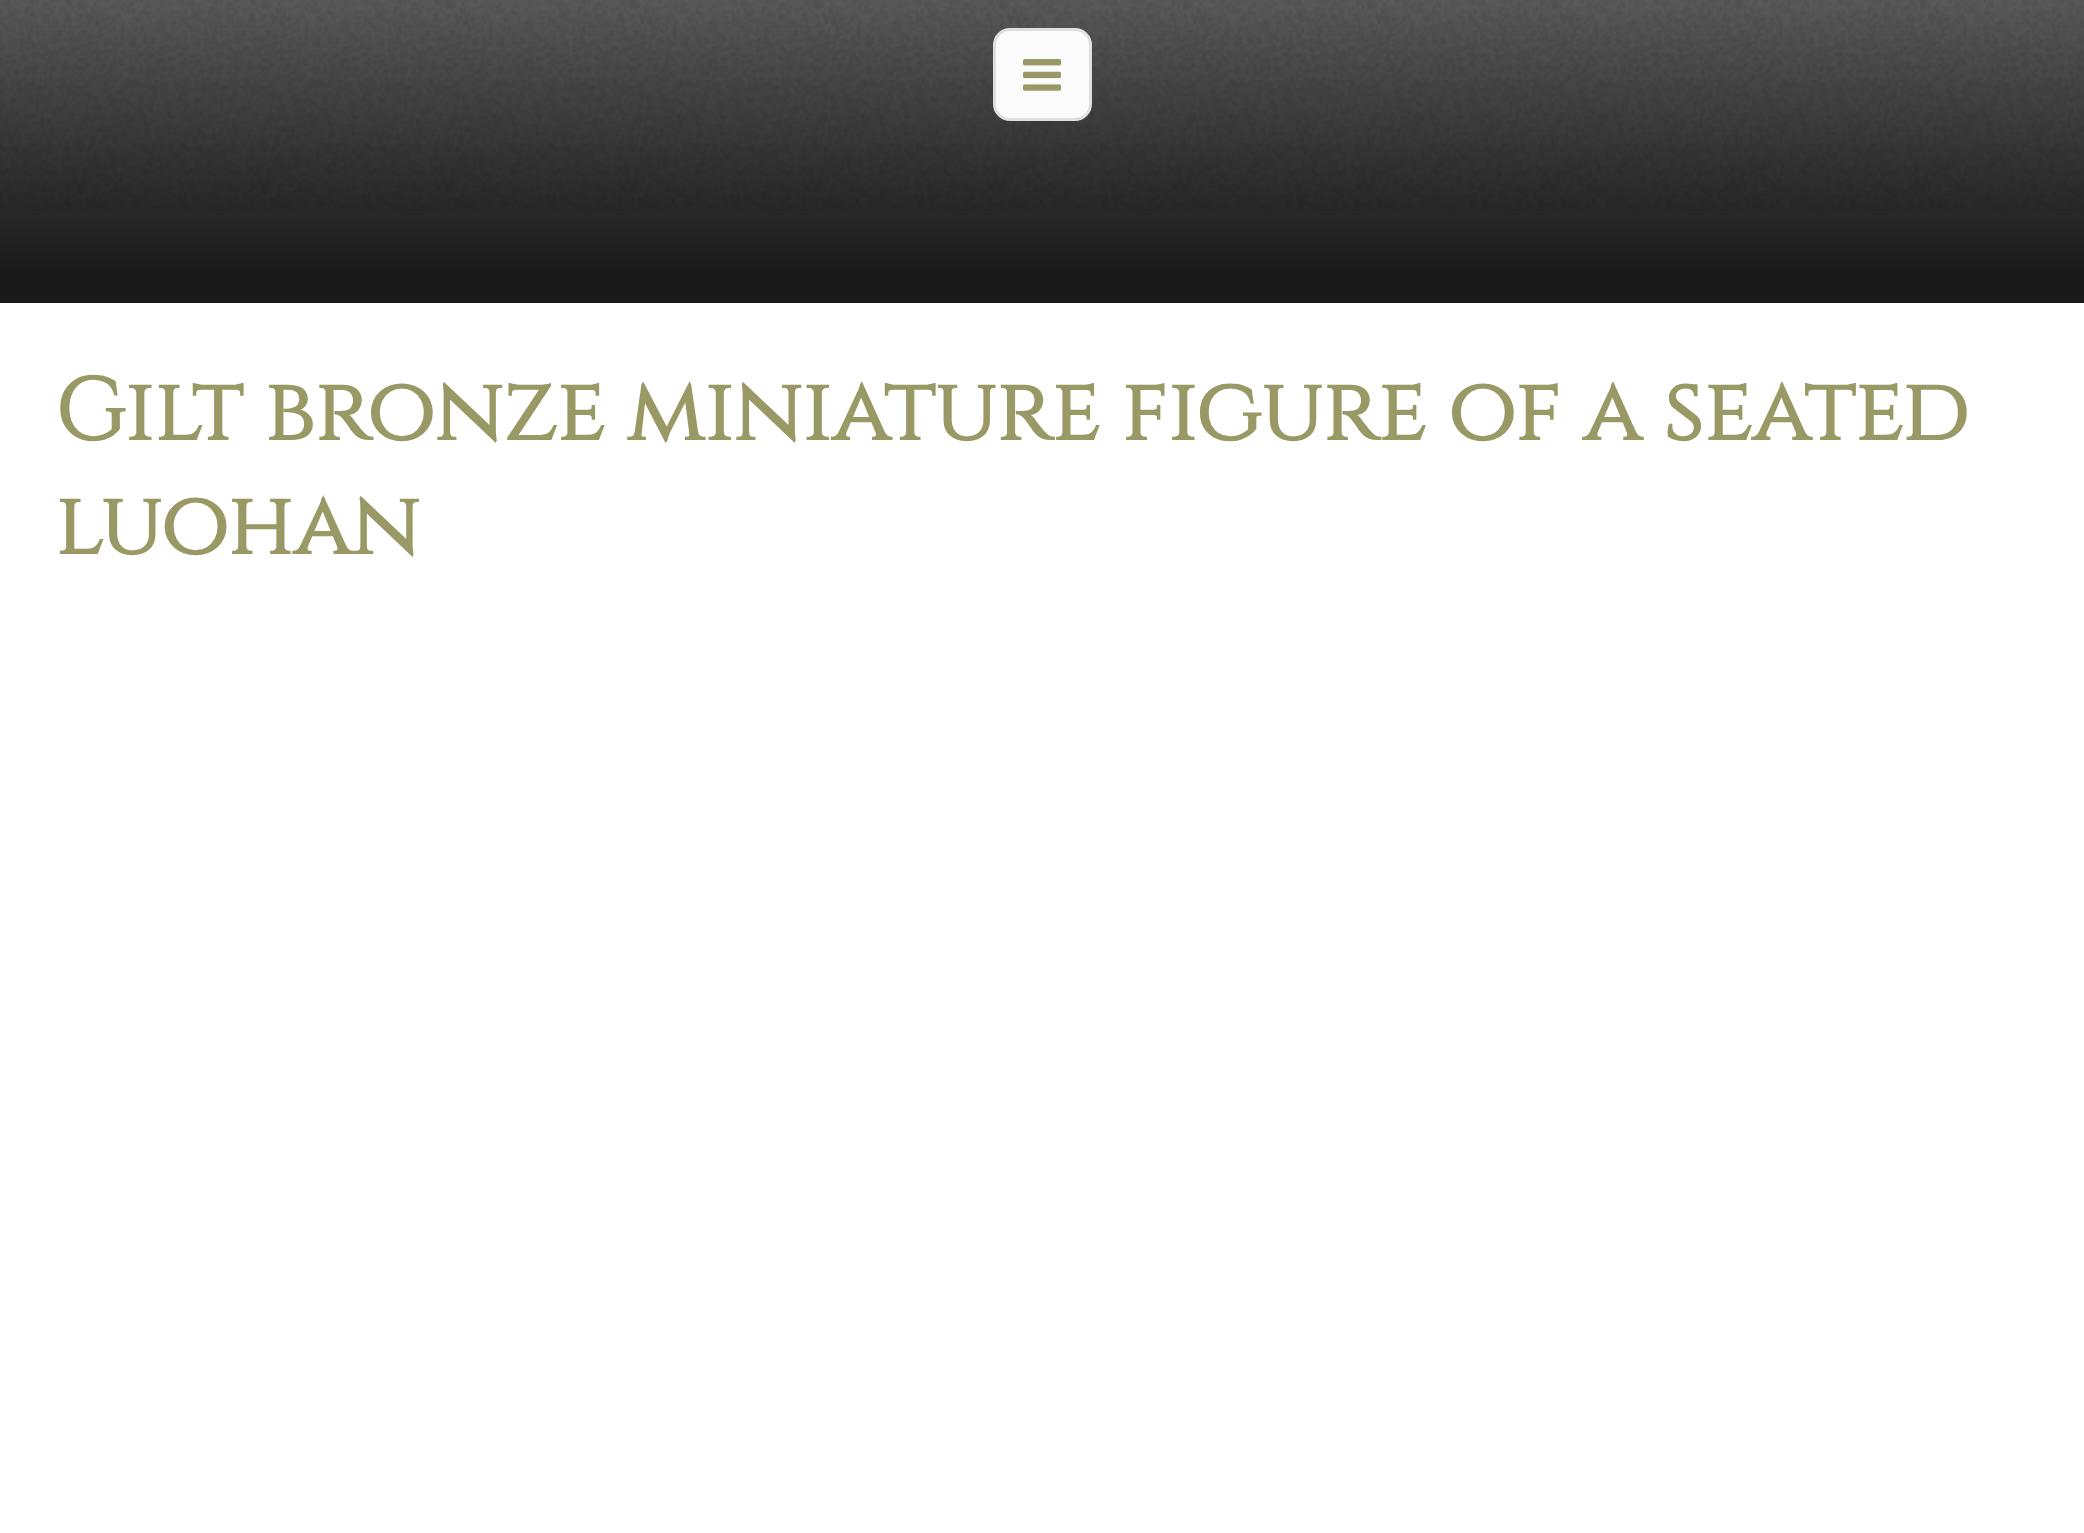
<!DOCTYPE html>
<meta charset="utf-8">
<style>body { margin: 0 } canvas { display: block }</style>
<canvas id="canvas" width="2084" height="1533"></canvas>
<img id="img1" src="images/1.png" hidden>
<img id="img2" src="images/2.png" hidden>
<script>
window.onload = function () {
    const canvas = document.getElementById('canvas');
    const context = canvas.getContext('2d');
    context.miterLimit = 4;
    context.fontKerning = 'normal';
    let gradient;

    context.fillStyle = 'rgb(255, 255, 255)';
    context.fillRect(0, 0, 2084, 1533);
    gradient = context.createLinearGradient(0, 0, 0, 272);
    gradient.addColorStop(0, 'rgb(91, 91, 91)');
    gradient.addColorStop(1, 'rgb(25, 25, 25)');
    context.fillStyle = gradient;
    context.fillRect(0, 0, 2084, 303);
    context.drawImage(document.getElementById('img1'), 0, 0, 2084, 211);
    context.fillStyle = 'rgb(251, 251, 251)';
    context.beginPath();
    context.roundRect(994.5, 29.5, 96, 90, 15.5);
    context.fill();
    context.strokeStyle = 'rgb(223, 223, 223)';
    context.lineWidth = 3;
    context.stroke();
    context.drawImage(document.getElementById('img2'), 1023, 59, 39, 32);
    context.font = 'bold 88px Cinzel';
    context.fillStyle = 'rgb(153, 153, 102)';
    context.fillText('Gilt bronze miniature figure of a seated', 55, 440);
    context.fillText('luohan', 55, 554);
};
</script>
